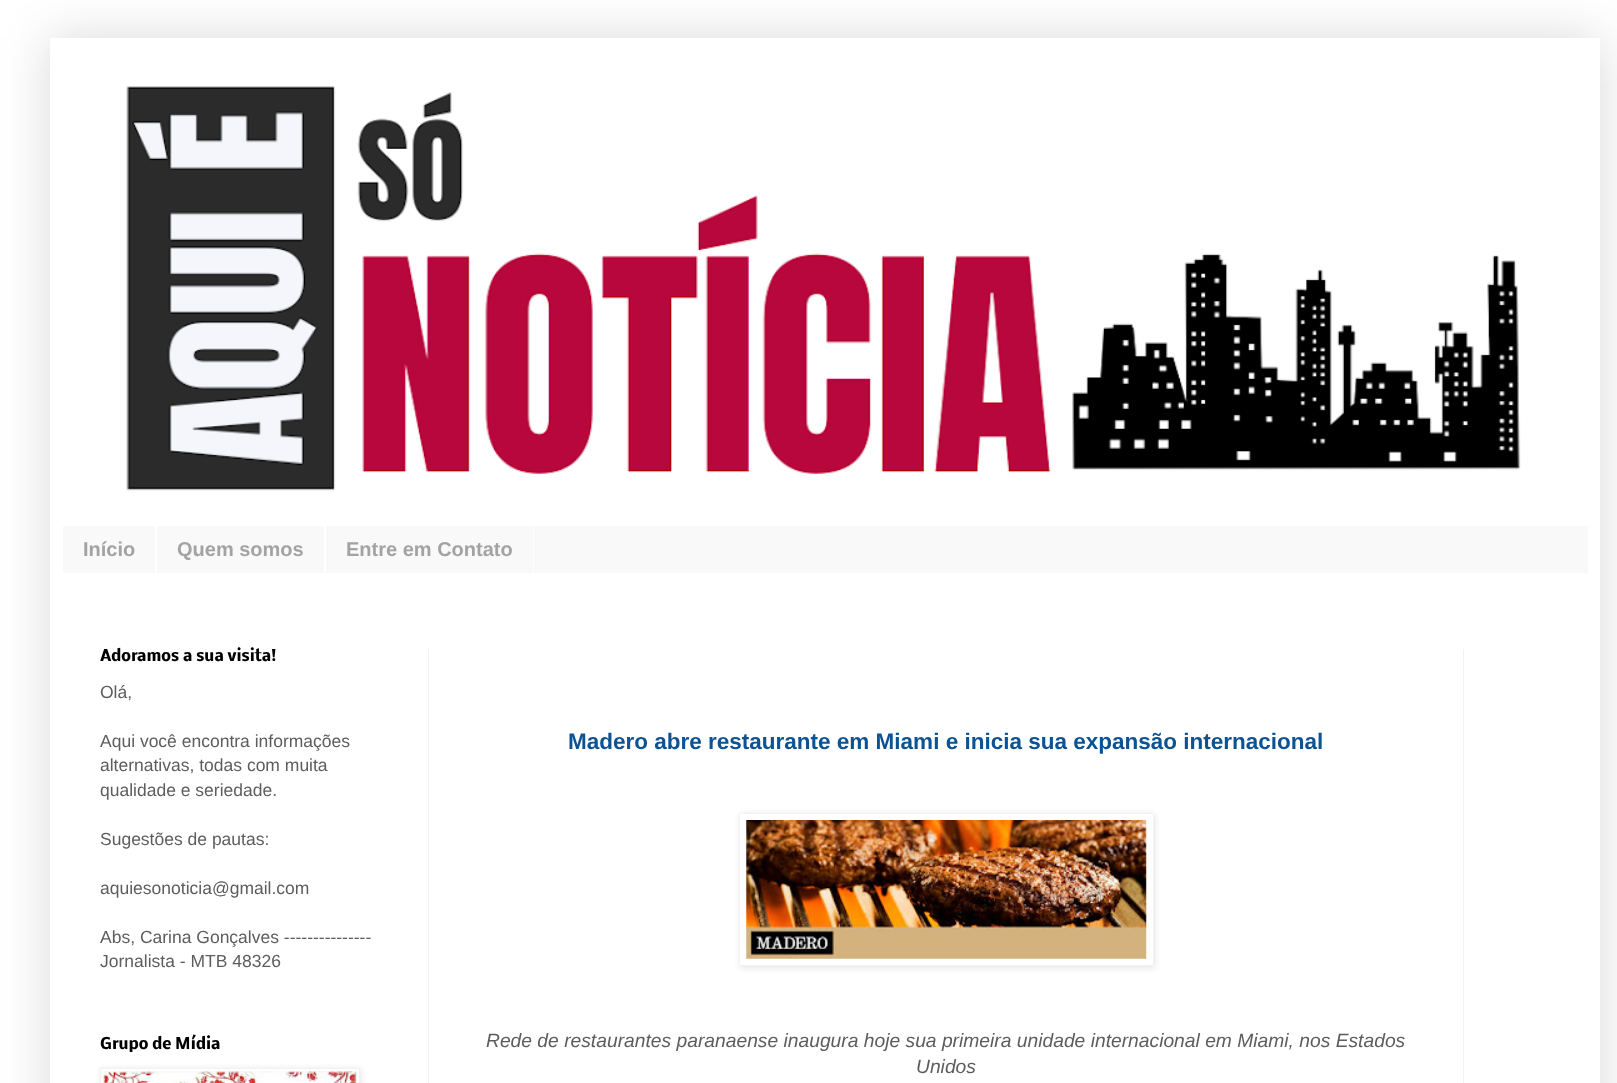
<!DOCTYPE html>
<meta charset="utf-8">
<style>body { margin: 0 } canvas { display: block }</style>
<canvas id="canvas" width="1617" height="1083"></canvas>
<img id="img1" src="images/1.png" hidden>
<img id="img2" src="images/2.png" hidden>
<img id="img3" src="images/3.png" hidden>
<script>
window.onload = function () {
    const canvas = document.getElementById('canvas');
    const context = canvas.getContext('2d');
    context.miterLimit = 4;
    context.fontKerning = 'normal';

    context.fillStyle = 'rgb(255, 255, 255)';
    context.fillRect(0, 0, 1617, 1083);
    context.save();
    context.beginPath();
    context.moveTo(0, 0);
    context.lineTo(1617, 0);
    context.lineTo(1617, 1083);
    context.lineTo(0, 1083);
    context.closePath();
    context.moveTo(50, 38);
    context.lineTo(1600, 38);
    context.lineTo(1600, 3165);
    context.lineTo(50, 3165);
    context.closePath();
    context.clip('evenodd');
    context.fillStyle = 'rgba(0, 0, 0, 0.15)';
    context.filter = 'blur(25px)';
    context.beginPath();
    context.rect(50, 38, 1550, 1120);
    context.fill();
    context.filter = 'none';
    context.restore();
    context.drawImage(document.getElementById('img1'), 126, 86, 1395, 405);
    context.fillStyle = 'rgb(249, 249, 249)';
    context.fillRect(63, 526, 1525, 47);
    context.fillStyle = 'rgb(255, 255, 255)';
    context.fillRect(155, 526, 2, 47);
    context.fillRect(324, 526, 2, 47);
    context.fillRect(533, 526, 1, 47);
    context.save();
    context.beginPath();
    context.moveTo(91, 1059);
    context.lineTo(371, 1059);
    context.lineTo(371, 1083);
    context.lineTo(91, 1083);
    context.closePath();
    context.moveTo(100, 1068);
    context.lineTo(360, 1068);
    context.lineTo(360, 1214);
    context.lineTo(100, 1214);
    context.closePath();
    context.clip('evenodd');
    context.fillStyle = 'rgba(0, 0, 0, 0.1)';
    context.filter = 'blur(3px)';
    context.beginPath();
    context.rect(101, 1069, 260, 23);
    context.fill();
    context.filter = 'none';
    context.restore();
    context.strokeStyle = 'rgb(242, 242, 242)';
    context.strokeRect(100.5, 1068.5, 259, 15);
    context.drawImage(document.getElementById('img2'), 103, 1071, 254, 12);
    context.fillStyle = 'rgba(0, 0, 0, 0.1)';
    context.filter = 'blur(3px)';
    context.beginPath();
    context.rect(740, 814, 415, 154);
    context.fill();
    context.filter = 'none';
    context.fillStyle = 'rgb(255, 255, 255)';
    context.beginPath();
    context.rect(739.5, 813.5, 414, 152);
    context.fill();
    context.stroke();
    context.drawImage(document.getElementById('img3'), 746, 820, 401, 139);
    context.fillStyle = 'rgb(242, 242, 242)';
    context.fillRect(428, 649, 1, 434);
    context.fillRect(1463, 649, 1, 434);
    context.font = 'bold 20px Liberation Sans';
    context.fillStyle = 'rgb(163, 163, 163)';
    context.fillText('Início', 83, 556);
    context.fillText('Quem somos', 177, 556);
    context.fillText('Entre em Contato', 346, 556);
    context.font = 'bold 15px Nobile';
    context.fillStyle = 'rgb(0, 0, 0)';
    context.fillText('Adoramos a sua visita!', 100, 661);
    context.font = '17.5px Liberation Sans';
    context.fillStyle = 'rgb(93, 93, 93)';
    context.fillText('Olá,', 100, 698);
    context.fillText('Aqui você encontra informações', 100, 747);
    context.fillText('alternativas, todas com muita', 100, 771);
    context.fillText('qualidade e seriedade.', 100, 796);
    context.fillText('Sugestões de pautas:', 100, 845);
    context.fillText('aquiesonoticia@gmail.com', 100, 894);
    context.fillText('Abs, Carina Gonçalves ---------------', 100, 943);
    context.fillText('Jornalista - MTB 48326', 100, 967);
    context.font = 'bold 15px Nobile';
    context.fillStyle = 'rgb(0, 0, 0)';
    context.fillText('Grupo de Mídia', 100, 1049);
    context.font = 'bold 22.5px Liberation Sans';
    context.fillStyle = 'rgb(11, 83, 148)';
    context.fillText('Madero abre restaurante em Miami e inicia sua expansão internacional', 568, 749);
    context.font = 'italic 19.25px Liberation Sans';
    context.fillStyle = 'rgb(93, 93, 93)';
    context.fillText('Rede de restaurantes paranaense inaugura hoje sua primeira unidade internacional em Miami, nos Estados', 486, 1047);
    context.fillText('Unidos', 916, 1073);
};
</script>
